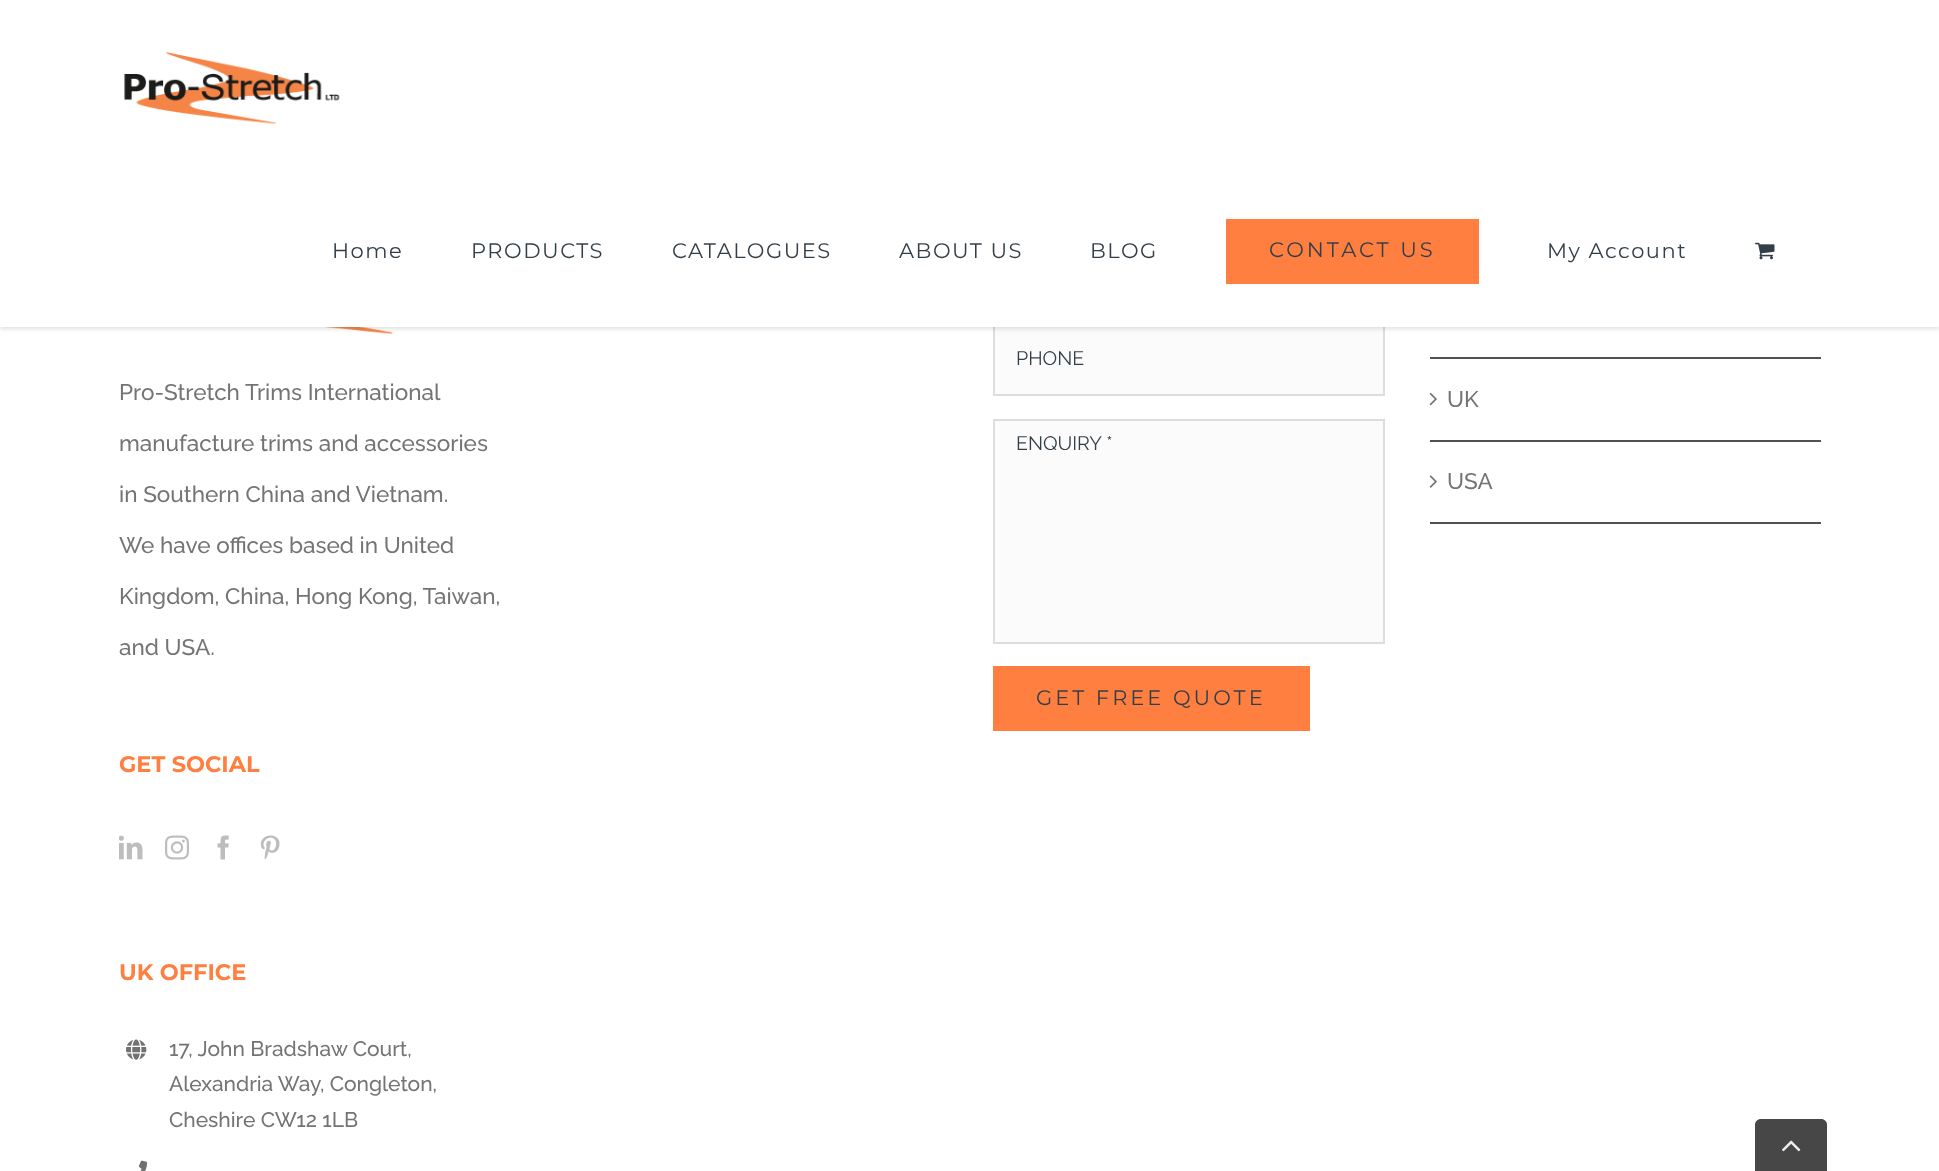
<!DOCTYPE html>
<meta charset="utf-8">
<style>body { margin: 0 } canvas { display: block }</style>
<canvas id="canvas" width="1939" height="1171"></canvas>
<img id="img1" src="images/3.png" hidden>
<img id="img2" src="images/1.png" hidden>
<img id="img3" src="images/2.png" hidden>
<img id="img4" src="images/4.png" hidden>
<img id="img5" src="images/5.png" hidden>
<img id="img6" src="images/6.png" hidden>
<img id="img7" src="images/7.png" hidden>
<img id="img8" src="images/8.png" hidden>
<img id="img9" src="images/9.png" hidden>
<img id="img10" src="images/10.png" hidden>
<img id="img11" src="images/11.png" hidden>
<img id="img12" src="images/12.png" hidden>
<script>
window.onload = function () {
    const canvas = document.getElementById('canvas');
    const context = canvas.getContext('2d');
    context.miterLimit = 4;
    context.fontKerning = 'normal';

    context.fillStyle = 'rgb(255, 255, 255)';
    context.fillRect(0, 0, 1939, 1171);
    context.drawImage(document.getElementById('img1'), 325, 327, 68, 8);
    context.fillStyle = 'rgb(251, 251, 251)';
    context.fillRect(995, 327, 388, 67);
    context.strokeStyle = 'rgb(221, 221, 221)';
    context.lineWidth = 2;
    context.strokeRect(994, 322, 390, 73);
    context.fillStyle = 'rgba(0, 0, 0, 0.12)';
    context.filter = 'blur(2px)';
    context.beginPath();
    context.rect(0, 2, 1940, 327);
    context.fill();
    context.filter = 'none';
    context.fillStyle = 'rgb(255, 255, 255)';
    context.fillRect(0, 0, 1939, 327);
    context.drawImage(document.getElementById('img2'), 124, 52, 216, 73);
    context.fillStyle = 'rgb(255, 127, 65)';
    context.fillRect(1226, 219, 253, 65);
    context.drawImage(document.getElementById('img3'), 1755, 242, 20, 18);
    context.drawImage(document.getElementById('img4'), 119, 835, 24, 25);
    context.drawImage(document.getElementById('img5'), 165, 835, 24, 25);
    context.drawImage(document.getElementById('img6'), 217, 835, 12, 25);
    context.drawImage(document.getElementById('img7'), 260, 835, 20, 25);
    context.drawImage(document.getElementById('img8'), 126, 1039, 21, 21);
    context.drawImage(document.getElementById('img9'), 138, 1160, 9, 11);
    context.fillStyle = 'rgb(251, 251, 251)';
    context.beginPath();
    context.rect(994, 420, 390, 223);
    context.fill();
    context.stroke();
    context.fillStyle = 'rgb(255, 127, 65)';
    context.fillRect(993, 666, 317, 65);
    context.fillStyle = 'rgb(80, 81, 82)';
    context.fillRect(1430, 357, 391, 2);
    context.fillRect(1430, 440, 391, 2);
    context.drawImage(document.getElementById('img10'), 1429, 392, 8, 14);
    context.fillRect(1430, 522, 391, 2);
    context.drawImage(document.getElementById('img11'), 1429, 475, 8, 13);
    context.fillStyle = 'rgb(71, 71, 71)';
    context.beginPath();
    context.moveTo(1761, 1119);
    context.lineTo(1821, 1119);
    context.bezierCurveTo(1824.5, 1119, 1827, 1121.5, 1827, 1125);
    context.lineTo(1827, 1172);
    context.lineTo(1755, 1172);
    context.lineTo(1755, 1125);
    context.bezierCurveTo(1755, 1121.5, 1757.5, 1119, 1761, 1119);
    context.closePath();
    context.fill();
    context.drawImage(document.getElementById('img12'), 1782, 1140, 19, 12);
    context.letterSpacing = '1.5px';
    context.font = '21px Montserrat';
    context.fillStyle = 'rgb(51, 63, 72)';
    context.fillText('Home', 332, 258);
    context.fillText('PRODUCTS', 471, 258);
    context.fillText('CATALOGUES', 672, 258);
    context.fillText('ABOUT US', 899, 258);
    context.fillText('BLOG', 1090, 258);
    context.letterSpacing = '3px';
    context.fillText('CONTACT US', 1269, 257);
    context.letterSpacing = '1.5px';
    context.fillText('My Account', 1547, 258);
    context.letterSpacing = '0px';
    context.font = '500 22.5px Raleway';
    context.fillStyle = 'rgb(116, 116, 116)';
    context.fillText('Pro-Stretch Trims International', 119, 400);
    context.fillText('manufacture trims and accessories', 119, 451);
    context.fillText('in Southern China and Vietnam.', 119, 502);
    context.fillText('We have offices based in United', 119, 553);
    context.fillText('Kingdom, China, Hong Kong, Taiwan,', 119, 604);
    context.fillText('and USA.', 119, 655);
    context.font = 'bold 22.5px Montserrat';
    context.fillStyle = 'rgb(255, 127, 65)';
    context.fillText('GET SOCIAL', 119, 772);
    context.fillText('UK OFFICE', 119, 980);
    context.font = '500 21px Raleway';
    context.fillStyle = 'rgb(116, 116, 116)';
    context.fillText('17, John Bradshaw Court,', 169, 1056);
    context.fillText('Alexandria Way, Congleton,', 169, 1091);
    context.fillText('Cheshire CW12 1LB', 169, 1127);
    context.font = '19.5px Raleway';
    context.fillStyle = 'rgb(51, 63, 72)';
    context.fillText('PHONE', 1016, 365);
    context.fillText('ENQUIRY *', 1016, 450);
    context.letterSpacing = '3px';
    context.font = '21px Montserrat';
    context.fillText('GET FREE QUOTE', 1036, 705);
    context.letterSpacing = '0px';
    context.font = '500 22.5px Raleway';
    context.fillStyle = 'rgb(116, 116, 116)';
    context.fillText('UK', 1447, 407);
    context.fillText('USA', 1447, 489);
};
</script>
